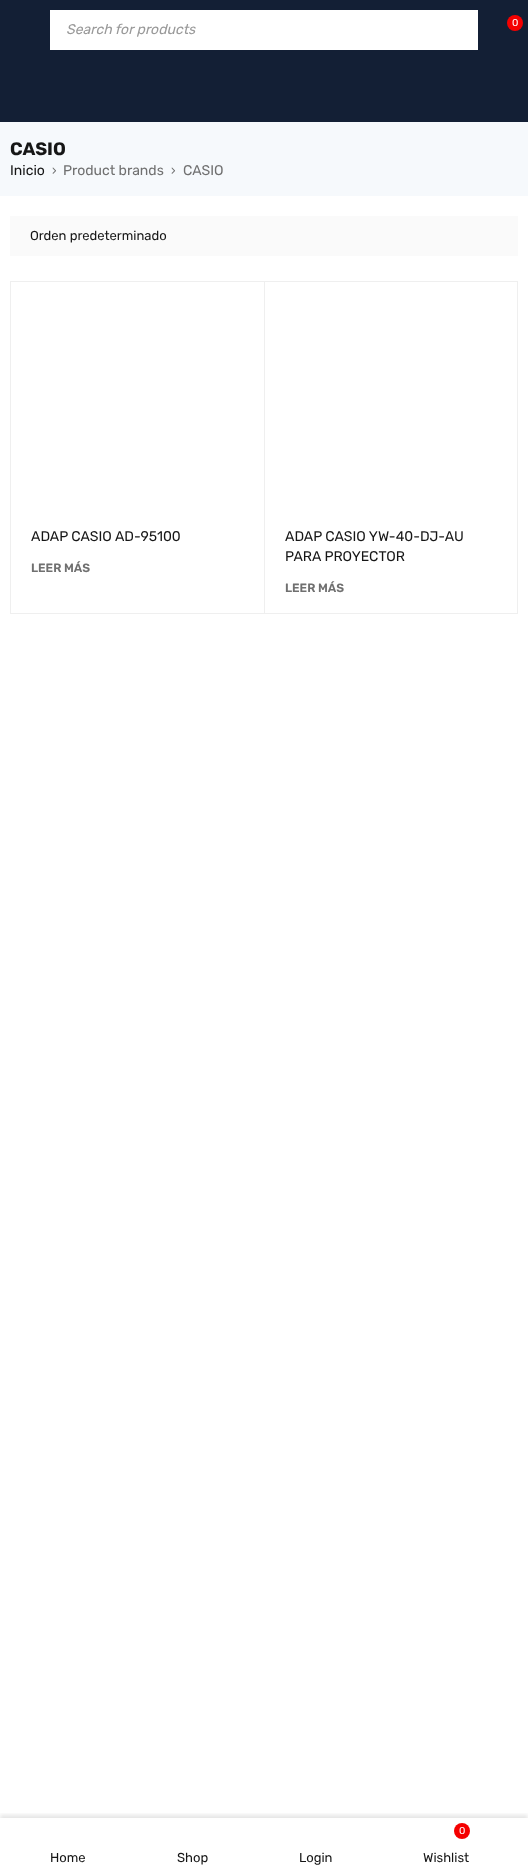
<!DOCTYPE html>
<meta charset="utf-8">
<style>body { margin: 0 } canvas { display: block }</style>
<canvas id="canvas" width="528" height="1873"></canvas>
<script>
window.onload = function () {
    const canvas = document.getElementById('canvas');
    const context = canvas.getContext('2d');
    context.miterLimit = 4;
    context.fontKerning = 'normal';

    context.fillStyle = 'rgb(255, 255, 255)';
    context.fillRect(0, 0, 528, 1873);
    context.fillStyle = 'rgb(19, 31, 53)';
    context.fillRect(0, 0, 528, 122);
    context.fillStyle = 'rgb(255, 255, 255)';
    context.fillRect(50, 10, 428, 40);
    context.fillStyle = 'rgb(245, 0, 0)';
    context.beginPath();
    context.arc(515, 23, 8, 0, 2 * Math.PI);
    context.fill();
    context.fillStyle = 'rgb(246, 249, 252)';
    context.fillRect(0, 122, 528, 74);
    context.fillStyle = 'rgb(250, 250, 250)';
    context.fillRect(10, 216, 508, 40);
    context.fillStyle = 'rgb(239, 239, 239)';
    context.fillRect(10, 281, 1, 333);
    context.fillRect(11, 281, 507, 1);
    context.fillRect(264, 281, 1, 333);
    context.fillRect(11, 613, 254, 1);
    context.fillRect(517, 281, 1, 333);
    context.fillRect(265, 613, 253, 1);
    context.save();
    context.beginPath();
    context.rect(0, 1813, 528, 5);
    context.clip();
    context.fillStyle = 'rgba(0, 0, 0, 0.1)';
    context.filter = 'blur(2px)';
    context.beginPath();
    context.rect(0, 1815, 528, 55);
    context.fill();
    context.filter = 'none';
    context.restore();
    context.fillStyle = 'rgb(245, 0, 0)';
    context.beginPath();
    context.arc(462, 1831, 8, 0, 2 * Math.PI);
    context.fill();
    context.font = 'italic 14px Rubik';
    context.fillStyle = 'rgb(153, 153, 153)';
    context.fillText('Search for products', 66, 34);
    context.font = '10px Rubik';
    context.fillStyle = 'rgb(255, 255, 255)';
    context.fillText('0', 512, 26);
    context.font = 'bold 18px Rubik';
    context.fillStyle = 'rgb(22, 22, 22)';
    context.fillText('CASIO', 10, 155);
    context.font = '14px Rubik';
    context.fillText('Inicio', 10, 175);
    context.font = '13px Rubik';
    context.fillStyle = 'rgb(112, 112, 112)';
    context.fillText('›', 52, 175);
    context.font = '14px Rubik';
    context.fillText('Product brands', 63, 175);
    context.font = '13px Rubik';
    context.fillText('›', 171, 175);
    context.font = '14px Rubik';
    context.fillText('CASIO', 183, 175);
    context.font = '13px Rubik';
    context.fillStyle = 'rgb(22, 22, 22)';
    context.fillText('Orden predeterminado', 30, 240);
    context.font = '14px Rubik';
    context.fillText('ADAP CASIO AD-95100', 31, 541);
    context.font = '600 12px Rubik';
    context.fillStyle = 'rgb(112, 112, 112)';
    context.fillText('LEER MÁS', 31, 572);
    context.font = '14px Rubik';
    context.fillStyle = 'rgb(22, 22, 22)';
    context.fillText('ADAP CASIO YW-40-DJ-AU', 285, 541);
    context.fillText('PARA PROYECTOR', 285, 561);
    context.font = '600 12px Rubik';
    context.fillStyle = 'rgb(112, 112, 112)';
    context.fillText('LEER MÁS', 285, 592);
    context.font = '13px Rubik';
    context.fillStyle = 'rgb(22, 22, 22)';
    context.fillText('Home', 50, 1862);
    context.fillText('Shop', 177, 1862);
    context.fillText('Login', 299, 1862);
    context.font = '10px Rubik';
    context.fillStyle = 'rgb(255, 255, 255)';
    context.fillText('0', 459, 1834);
    context.font = '13px Rubik';
    context.fillStyle = 'rgb(22, 22, 22)';
    context.fillText('Wishlist', 423, 1862);
};
</script>
